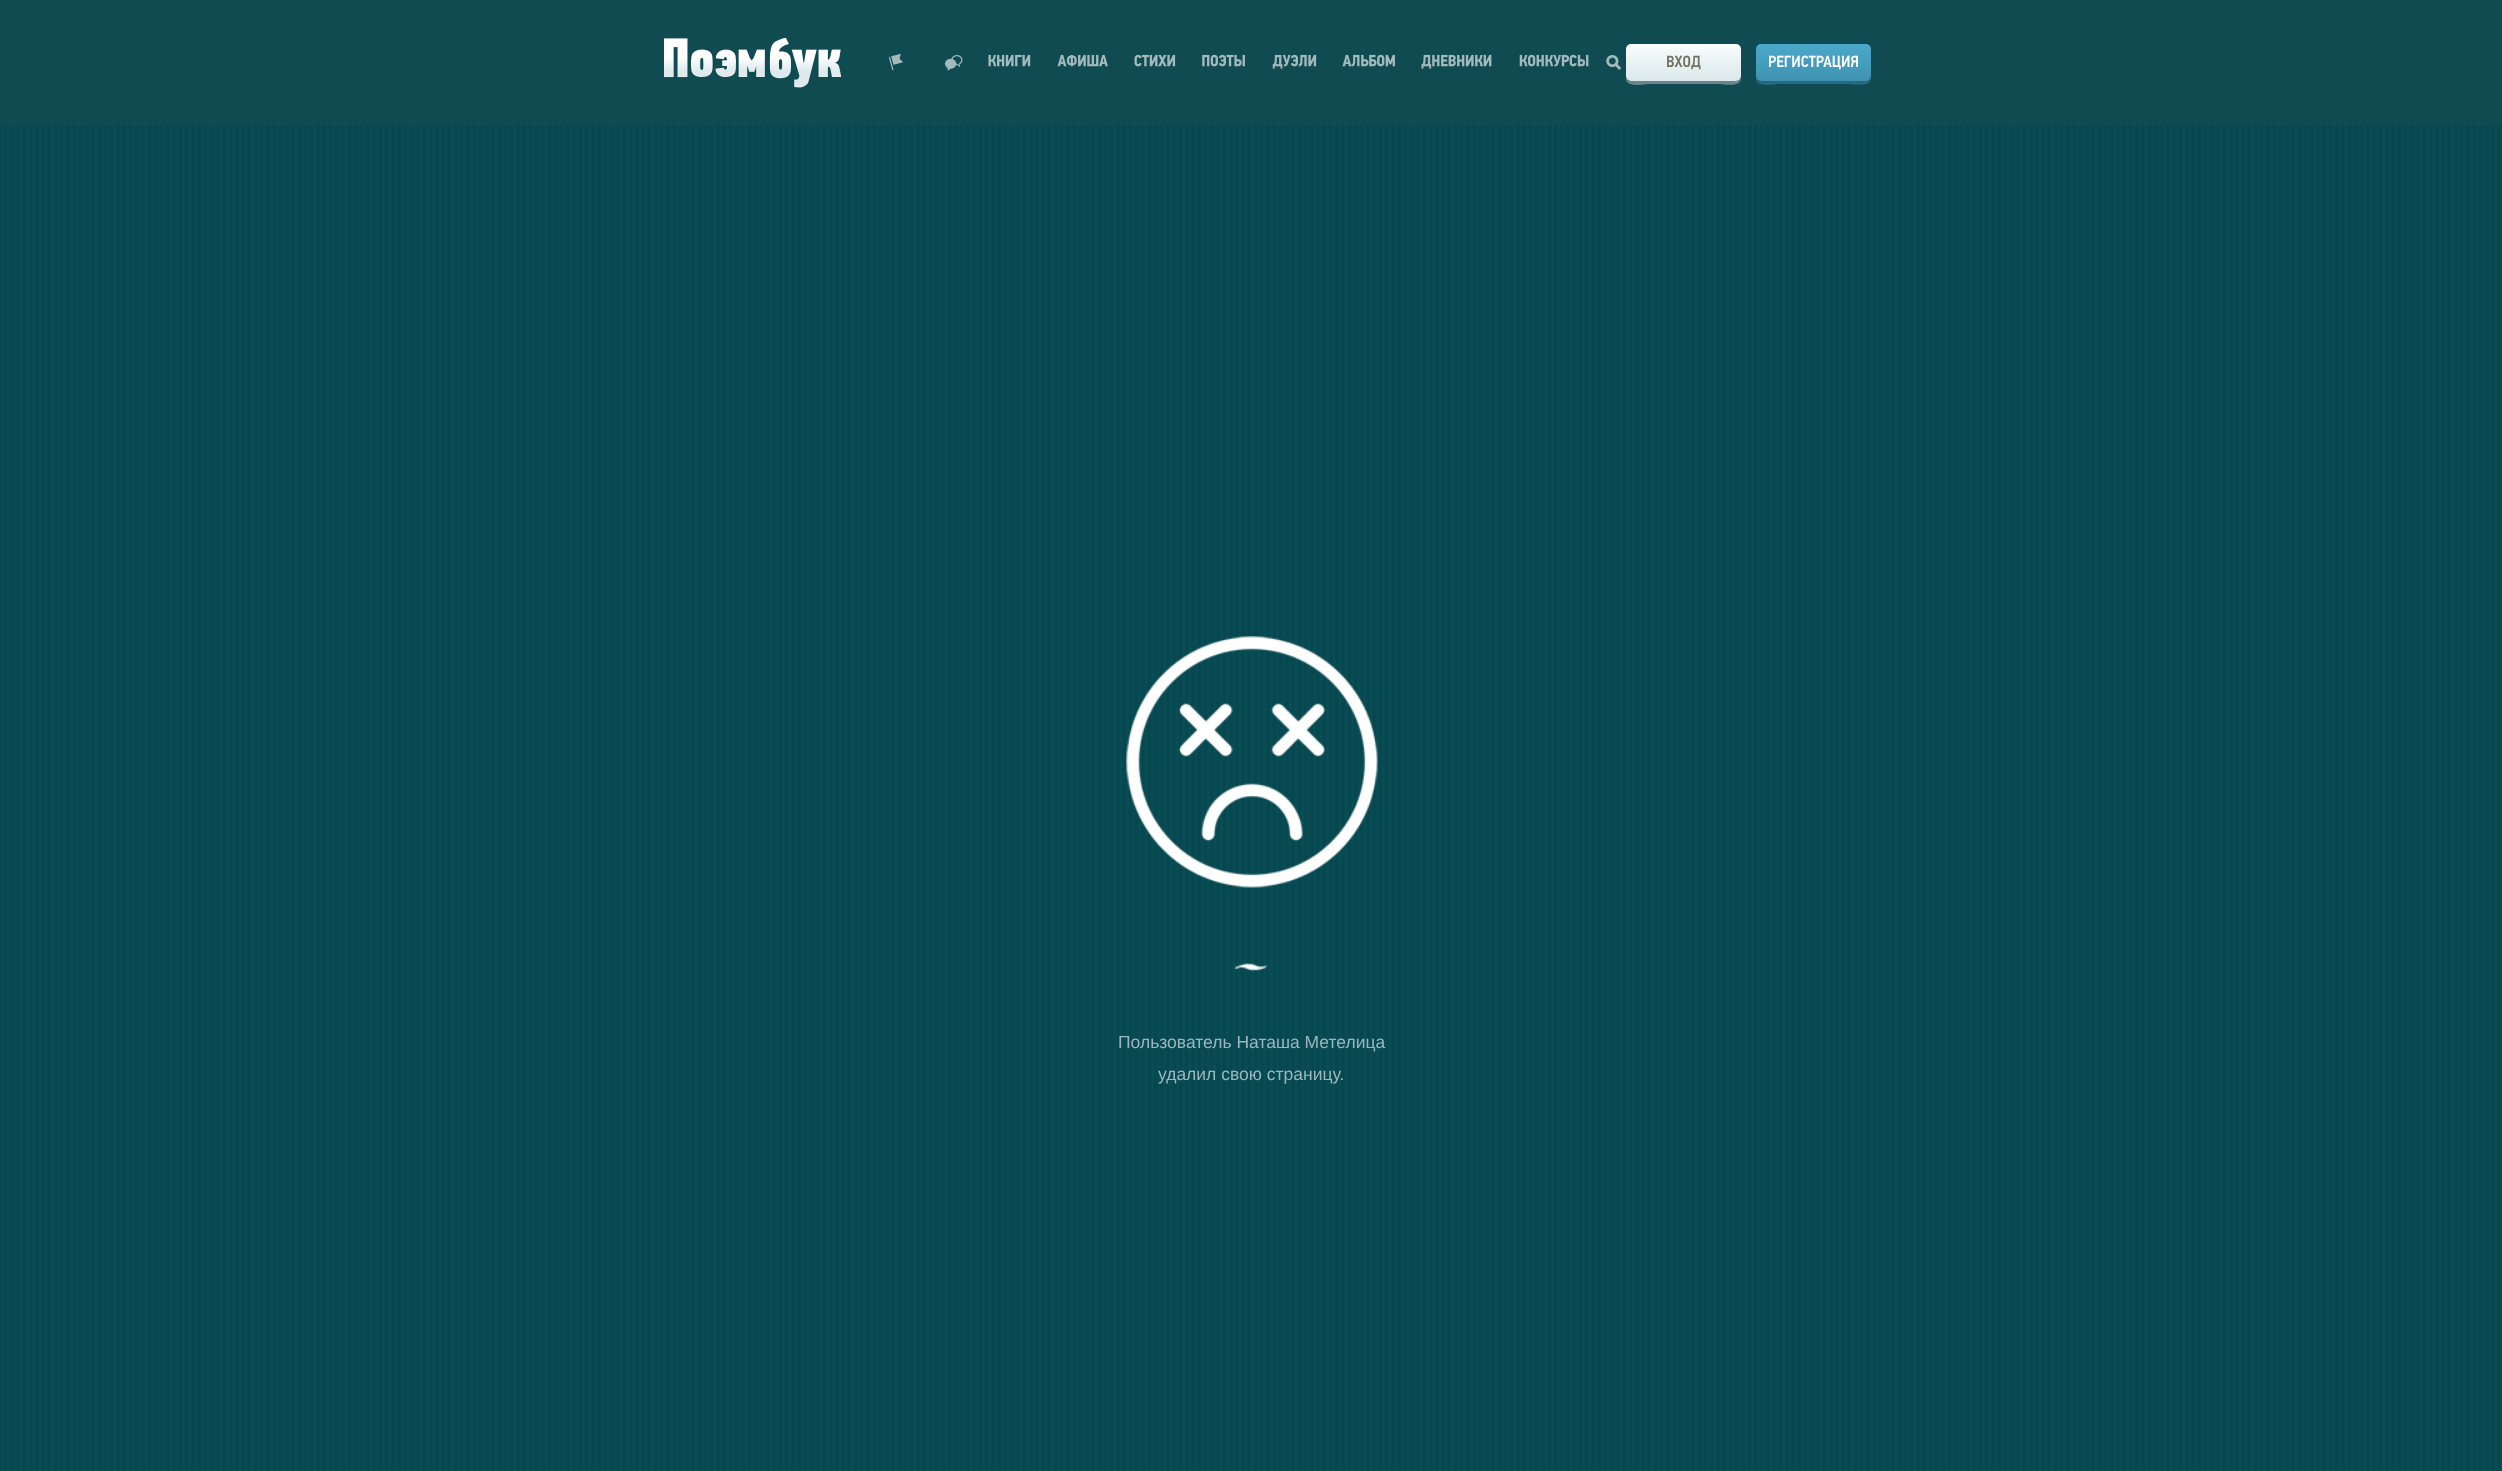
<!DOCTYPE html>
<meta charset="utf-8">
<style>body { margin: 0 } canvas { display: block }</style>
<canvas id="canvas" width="2502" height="1471"></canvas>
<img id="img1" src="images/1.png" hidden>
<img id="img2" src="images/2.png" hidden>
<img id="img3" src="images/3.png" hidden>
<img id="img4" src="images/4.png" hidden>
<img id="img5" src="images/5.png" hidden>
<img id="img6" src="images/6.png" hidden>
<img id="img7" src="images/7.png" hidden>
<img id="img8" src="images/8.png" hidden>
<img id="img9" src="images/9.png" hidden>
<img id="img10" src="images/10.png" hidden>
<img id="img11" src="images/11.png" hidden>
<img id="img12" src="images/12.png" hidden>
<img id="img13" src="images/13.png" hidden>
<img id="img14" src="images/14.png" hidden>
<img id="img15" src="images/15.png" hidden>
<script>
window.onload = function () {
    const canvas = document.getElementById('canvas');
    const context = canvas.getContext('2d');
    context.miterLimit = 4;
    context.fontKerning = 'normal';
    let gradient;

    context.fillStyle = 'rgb(255, 255, 255)';
    context.fillRect(0, 0, 2502, 1471);
    context.drawImage(document.getElementById('img1'), 0, 125, 2502, 1346);
    context.fillStyle = 'rgb(16, 75, 82)';
    context.fillRect(0, 0, 2502, 125);
    context.drawImage(document.getElementById('img2'), 664, 38, 177, 50);
    context.drawImage(document.getElementById('img3'), 889, 54, 14, 17);
    context.drawImage(document.getElementById('img4'), 945, 55, 18, 16);
    context.drawImage(document.getElementById('img5'), 988, 54, 43, 13);
    context.drawImage(document.getElementById('img6'), 1057, 54, 51, 13);
    context.drawImage(document.getElementById('img7'), 1134, 54, 42, 13);
    context.drawImage(document.getElementById('img8'), 1202, 54, 43, 13);
    context.drawImage(document.getElementById('img9'), 1272, 54, 45, 15);
    context.drawImage(document.getElementById('img10'), 1342, 54, 53, 13);
    context.drawImage(document.getElementById('img11'), 1421, 54, 71, 15);
    context.drawImage(document.getElementById('img12'), 1519, 54, 70, 13);
    context.drawImage(document.getElementById('img13'), 1606, 55, 15, 15);
    context.fillStyle = 'rgb(105, 135, 139)';
    context.beginPath();
    context.moveTo(1626, 49);
    context.lineTo(1626, 80);
    context.bezierCurveTo(1628, 88, 1648, 84, 1648, 84);
    context.lineTo(1718, 84);
    context.bezierCurveTo(1724, 84, 1741, 88, 1741, 78);
    context.bezierCurveTo(1740, 80, 1738, 81, 1736, 81);
    context.lineTo(1631, 81);
    context.bezierCurveTo(1628, 81, 1626, 79, 1626, 76);
    context.closePath();
    context.fill();
    gradient = context.createLinearGradient(1684, 44, 1684, 81);
    gradient.addColorStop(0, 'rgb(248, 252, 252)');
    gradient.addColorStop(1, 'rgb(219, 232, 233)');
    context.fillStyle = gradient;
    context.beginPath();
    context.roundRect(1626, 44, 115, 37, 5);
    context.fill();
    context.fillStyle = 'rgb(40, 105, 129)';
    context.beginPath();
    context.moveTo(1756, 49);
    context.lineTo(1756, 80);
    context.bezierCurveTo(1758, 88, 1778, 84, 1778, 84);
    context.lineTo(1848, 84);
    context.bezierCurveTo(1854, 84, 1871, 88, 1871, 78);
    context.bezierCurveTo(1870, 80, 1868, 81, 1866, 81);
    context.lineTo(1761, 81);
    context.bezierCurveTo(1758, 81, 1756, 79, 1756, 76);
    context.closePath();
    context.fill();
    gradient = context.createLinearGradient(1814, 44, 1814, 81);
    gradient.addColorStop(0, 'rgb(75, 169, 203)');
    gradient.addColorStop(1, 'rgb(62, 146, 176)');
    context.fillStyle = gradient;
    context.beginPath();
    context.roundRect(1756, 44, 115, 37, 5);
    context.fill();
    context.drawImage(document.getElementById('img14'), 1126, 636, 252, 252);
    context.drawImage(document.getElementById('img15'), 1235, 962, 33, 10);
    context.font = '500 16.25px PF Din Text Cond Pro';
    context.fillStyle = 'rgb(115, 115, 101)';
    context.fillText('ВХОД', 1666, 67);
    context.fillStyle = 'rgb(255, 255, 255)';
    context.fillText('РЕГИСТРАЦИЯ', 1768, 67);
    context.font = '17.5px Liberation Sans';
    context.fillStyle = 'rgb(154, 182, 190)';
    context.fillText('Пользователь Наташа Метелица', 1118, 1048);
    context.fillText('удалил свою страницу.', 1158, 1080);
};
</script>
